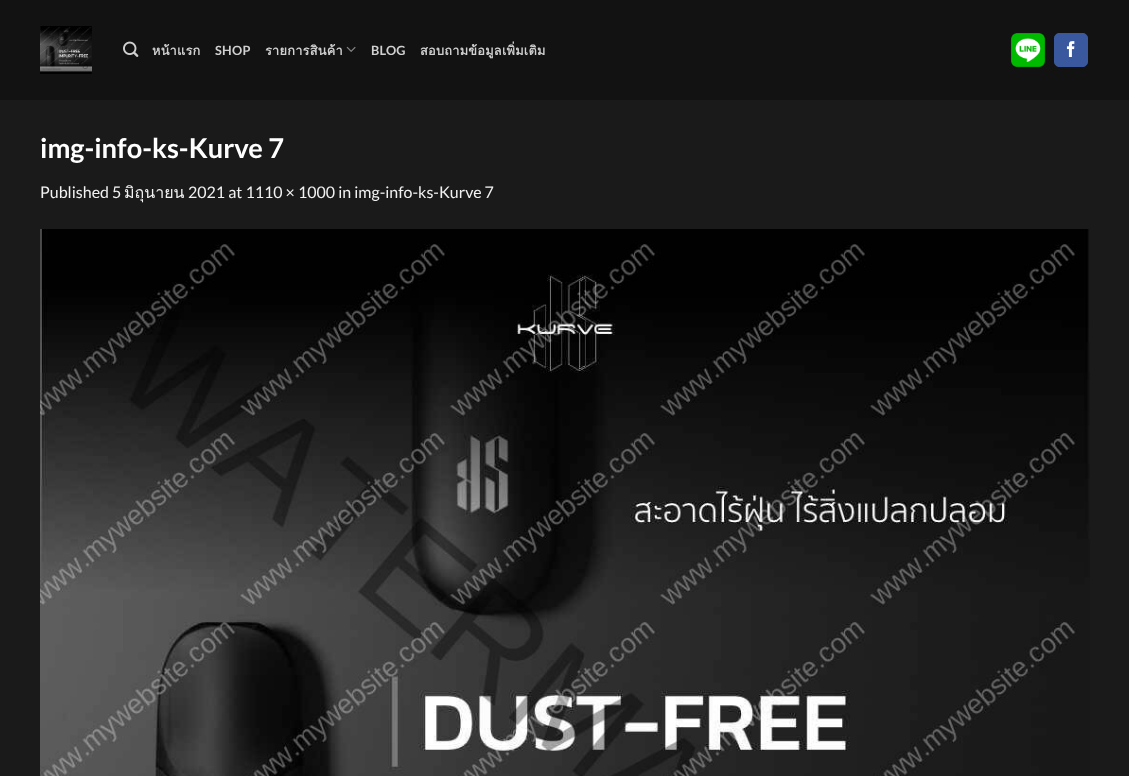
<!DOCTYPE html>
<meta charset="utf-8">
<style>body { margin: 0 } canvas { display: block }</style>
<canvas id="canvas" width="1129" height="776"></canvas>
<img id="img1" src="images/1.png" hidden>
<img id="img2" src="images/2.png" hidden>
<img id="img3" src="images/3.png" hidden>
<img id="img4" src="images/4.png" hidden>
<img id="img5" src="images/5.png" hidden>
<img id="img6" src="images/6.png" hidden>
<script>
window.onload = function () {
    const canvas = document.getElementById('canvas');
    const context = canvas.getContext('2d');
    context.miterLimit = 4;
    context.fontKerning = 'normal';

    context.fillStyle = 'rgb(26, 26, 26)';
    context.fillRect(0, 0, 1129, 776);
    context.fillStyle = 'rgb(18, 18, 18)';
    context.fillRect(0, 0, 1129, 100);
    context.drawImage(document.getElementById('img1'), 40, 26, 52, 48);
    context.drawImage(document.getElementById('img2'), 123, 41, 16, 16);
    context.drawImage(document.getElementById('img3'), 346, 46, 10, 6);
    context.drawImage(document.getElementById('img4'), 1011, 33, 34, 34);
    context.fillStyle = 'rgb(58, 88, 157)';
    context.beginPath();
    context.roundRect(1054.5, 33.5, 33, 33, 4.5);
    context.fill();
    context.strokeStyle = 'rgb(58, 88, 157)';
    context.stroke();
    context.drawImage(document.getElementById('img5'), 1066, 41, 9, 16);
    context.drawImage(document.getElementById('img6'), 40, 229, 1050, 547);
    context.letterSpacing = '0.25px';
    context.font = 'bold 12.75px Loma';
    context.fillStyle = 'rgb(208, 208, 208)';
    context.fillText('หน้าแรก', 152, 55);
    context.font = 'bold 12.75px Lato';
    context.fillText('SHOP', 215, 55);
    context.font = 'bold 12.75px Loma';
    context.fillText('รายการสินค้า', 265, 55);
    context.font = 'bold 12.75px Lato';
    context.fillText('BLOG', 371, 55);
    context.font = 'bold 12.75px Loma';
    context.fillText('สอบถามข้อมูลเพิ่มเติม', 420, 55);
    context.letterSpacing = '0px';
    context.font = 'bold 27.25px Lato';
    context.fillStyle = 'rgb(255, 255, 255)';
    context.fillText('img-info-ks-Kurve 7', 40, 158);
    context.font = '16px Lato';
    context.fillStyle = 'rgb(241, 241, 241)';
    context.fillText('Published 5', 40, 198);
    context.font = '16px Loma';
    context.fillText('มิถุนายน', 124, 198);
    context.font = '16px Lato';
    context.fillText('2021 at 1110 × 1000 in img-info-ks-Kurve 7', 188, 198);
};
</script>
